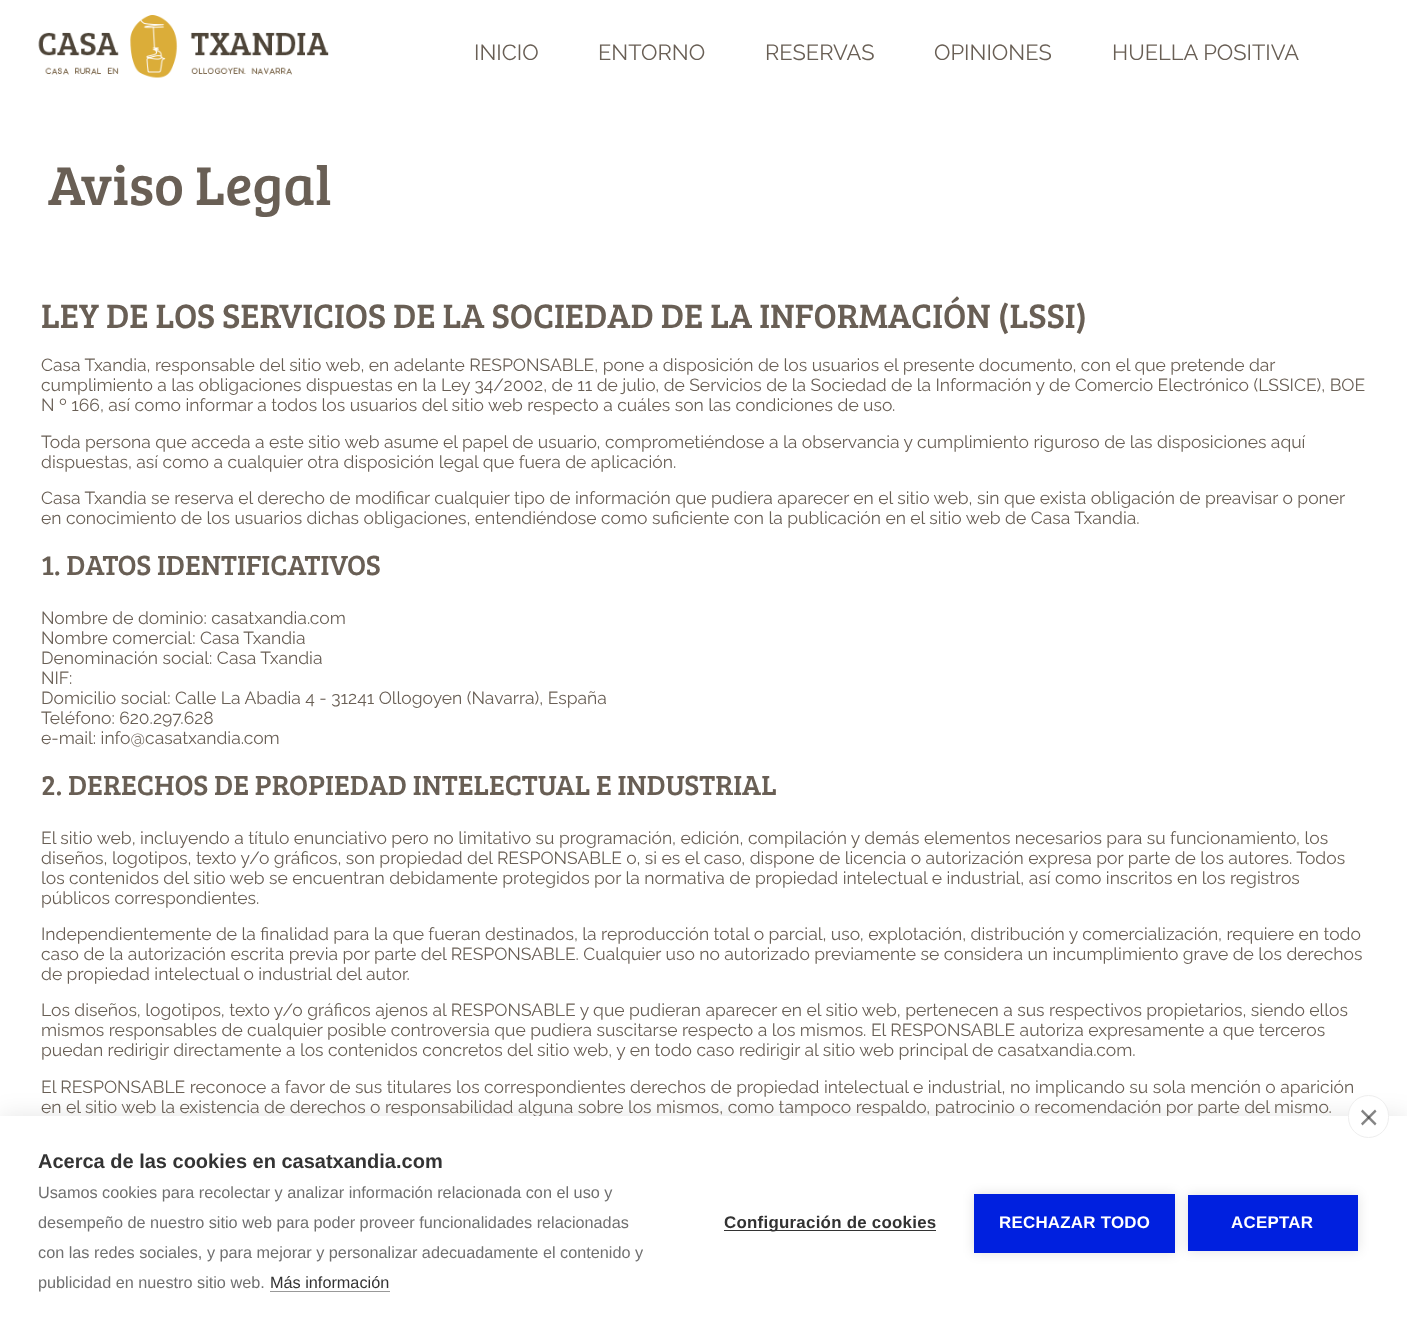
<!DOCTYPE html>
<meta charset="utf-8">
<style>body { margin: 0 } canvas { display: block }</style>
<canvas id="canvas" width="1407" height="1328"></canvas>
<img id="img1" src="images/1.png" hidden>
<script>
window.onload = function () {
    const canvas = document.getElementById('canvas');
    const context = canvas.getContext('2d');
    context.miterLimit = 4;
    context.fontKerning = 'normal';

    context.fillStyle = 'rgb(255, 255, 255)';
    context.fillRect(0, 0, 1407, 1328);
    context.drawImage(document.getElementById('img1'), 38, 15, 291, 63);
    context.fillStyle = 'rgba(0, 0, 0, 0.1)';
    context.filter = 'blur(12.5px)';
    context.beginPath();
    context.rect(0, 1116, 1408, 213);
    context.fill();
    context.filter = 'none';
    context.font = '21.9px Raleway';
    context.fillStyle = 'rgb(105, 95, 85)';
    context.fillText('INICIO', 474, 60);
    context.fillText('ENTORNO', 598, 60);
    context.fillText('RESERVAS', 765, 60);
    context.fillText('OPINIONES', 934, 60);
    context.fillText('HUELLA POSITIVA', 1112, 60);
    context.font = '56.25px Bree Serif';
    context.fillText('Aviso Legal', 48, 205);
    context.font = '35px Bree Serif';
    context.fillText('LEY DE LOS SERVICIOS DE LA SOCIEDAD DE LA INFORMACIÓN (LSSI)', 41, 328);
    context.font = '17.5px Raleway';
    context.fillText('Casa Txandia, responsable del sitio web, en adelante RESPONSABLE, pone a disposición de los usuarios el presente documento, con el que pretende dar', 41, 371);
    context.fillText('cumplimiento a las obligaciones dispuestas en la Ley 34/2002, de 11 de julio, de Servicios de la Sociedad de la Información y de Comercio Electrónico (LSSICE), BOE', 41, 391);
    context.fillText('N º 166, así como informar a todos los usuarios del sitio web respecto a cuáles son las condiciones de uso.', 41, 411);
    context.fillText('Toda persona que acceda a este sitio web asume el papel de usuario, comprometiéndose a la observancia y cumplimiento riguroso de las disposiciones aquí', 41, 448);
    context.fillText('dispuestas, así como a cualquier otra disposición legal que fuera de aplicación.', 41, 468);
    context.fillText('Casa Txandia se reserva el derecho de modificar cualquier tipo de información que pudiera aparecer en el sitio web, sin que exista obligación de preavisar o poner', 41, 504);
    context.fillText('en conocimiento de los usuarios dichas obligaciones, entendiéndose como suficiente con la publicación en el sitio web de Casa Txandia.', 41, 524);
    context.font = '28.75px Bree Serif';
    context.fillText('1. DATOS IDENTIFICATIVOS', 41, 575);
    context.font = '17.5px Raleway';
    context.fillText('Nombre de dominio: casatxandia.com', 41, 624);
    context.fillText('Nombre comercial: Casa Txandia', 41, 644);
    context.fillText('Denominación social: Casa Txandia', 41, 664);
    context.fillText('NIF:', 41, 684);
    context.fillText('Domicilio social: Calle La Abadia 4 - 31241 Ollogoyen (Navarra), España', 41, 704);
    context.fillText('Teléfono: 620.297.628', 41, 724);
    context.fillText('e-mail: info@casatxandia.com', 41, 744);
    context.font = '28.75px Bree Serif';
    context.fillText('2. DERECHOS DE PROPIEDAD INTELECTUAL E INDUSTRIAL', 41, 795);
    context.font = '17.5px Raleway';
    context.fillText('El sitio web, incluyendo a título enunciativo pero no limitativo su programación, edición, compilación y demás elementos necesarios para su funcionamiento, los', 41, 844);
    context.fillText('diseños, logotipos, texto y/o gráficos, son propiedad del RESPONSABLE o, si es el caso, dispone de licencia o autorización expresa por parte de los autores. Todos', 41, 864);
    context.fillText('los contenidos del sitio web se encuentran debidamente protegidos por la normativa de propiedad intelectual e industrial, así como inscritos en los registros', 41, 884);
    context.fillText('públicos correspondientes.', 41, 904);
    context.fillText('Independientemente de la finalidad para la que fueran destinados, la reproducción total o parcial, uso, explotación, distribución y comercialización, requiere en todo', 41, 940);
    context.fillText('caso de la autorización escrita previa por parte del RESPONSABLE. Cualquier uso no autorizado previamente se considera un incumplimiento grave de los derechos', 41, 960);
    context.fillText('de propiedad intelectual o industrial del autor.', 41, 980);
    context.fillText('Los diseños, logotipos, texto y/o gráficos ajenos al RESPONSABLE y que pudieran aparecer en el sitio web, pertenecen a sus respectivos propietarios, siendo ellos', 41, 1016);
    context.fillText('mismos responsables de cualquier posible controversia que pudiera suscitarse respecto a los mismos. El RESPONSABLE autoriza expresamente a que terceros', 41, 1036);
    context.fillText('puedan redirigir directamente a los contenidos concretos del sitio web, y en todo caso redirigir al sitio web principal de casatxandia.com.', 41, 1056);
    context.fillText('El RESPONSABLE reconoce a favor de sus titulares los correspondientes derechos de propiedad intelectual e industrial, no implicando su sola mención o aparición', 41, 1093);
    context.fillText('en el sitio web la existencia de derechos o responsabilidad alguna sobre los mismos, como tampoco respaldo, patrocinio o recomendación por parte del mismo.', 41, 1113);
    context.fillStyle = 'rgb(255, 255, 255)';
    context.fillRect(0, 1116, 1407, 212);
    context.beginPath();
    context.roundRect(1348.5, 1095.5, 40, 42, 20);
    context.fill();
    context.strokeStyle = 'rgb(238, 238, 238)';
    context.stroke();
    context.fillStyle = 'rgb(133, 133, 133)';
    context.beginPath();
    context.moveTo(1361, 1123.5);
    context.lineTo(1375, 1109.5);
    context.lineTo(1376.5, 1111.5);
    context.lineTo(1362.5, 1125.5);
    context.closePath();
    context.fill();
    context.fillStyle = 'rgba(51, 51, 51, 0.6)';
    context.beginPath();
    context.moveTo(1362.5, 1109.5);
    context.lineTo(1376.5, 1123.5);
    context.lineTo(1375, 1125.5);
    context.lineTo(1361, 1111.5);
    context.closePath();
    context.fill();
    context.font = 'bold 20px Liberation Sans';
    context.fillStyle = 'rgb(51, 51, 51)';
    context.fillText('Acerca de las cookies en casatxandia.com', 38, 1168);
    context.font = '16.25px Liberation Sans';
    context.fillStyle = 'rgb(112, 112, 112)';
    context.fillText('Usamos cookies para recolectar y analizar información relacionada con el uso y', 38, 1198);
    context.fillText('desempeño de nuestro sitio web para poder proveer funcionalidades relacionadas', 38, 1228);
    context.fillText('con las redes sociales, y para mejorar y personalizar adecuadamente el contenido y', 38, 1258);
    context.fillText('publicidad en nuestro sitio web.', 38, 1288);
    context.fillStyle = 'rgb(51, 51, 51)';
    context.fillText('Más información', 270, 1288);
    context.fillStyle = 'rgb(153, 153, 153)';
    context.fillRect(270, 1291, 120, 1);
    context.fillStyle = 'rgb(51, 51, 51)';
    context.fillRect(724, 1230, 212, 1);
    context.letterSpacing = '0.25px';
    context.font = 'bold 16.9px Liberation Sans';
    context.fillText('Configuración de cookies', 724, 1228);
    context.fillStyle = 'rgba(0, 0, 0, 0.12)';
    context.filter = 'blur(6px)';
    context.beginPath();
    context.rect(974, 1194, 201, 59);
    context.fill();
    context.filter = 'none';
    context.fillStyle = 'rgb(0, 32, 223)';
    context.fillRect(974, 1194, 201, 59);
    context.fillStyle = 'rgb(255, 255, 255)';
    context.fillText('RECHAZAR TODO', 999, 1228);
    context.fillStyle = 'rgba(0, 0, 0, 0.12)';
    context.filter = 'blur(6px)';
    context.beginPath();
    context.rect(1188, 1195, 170, 56);
    context.fill();
    context.filter = 'none';
    context.fillStyle = 'rgb(0, 32, 223)';
    context.fillRect(1188, 1195, 170, 56);
    context.fillStyle = 'rgb(255, 255, 255)';
    context.fillText('ACEPTAR', 1231, 1228);
};
</script>
